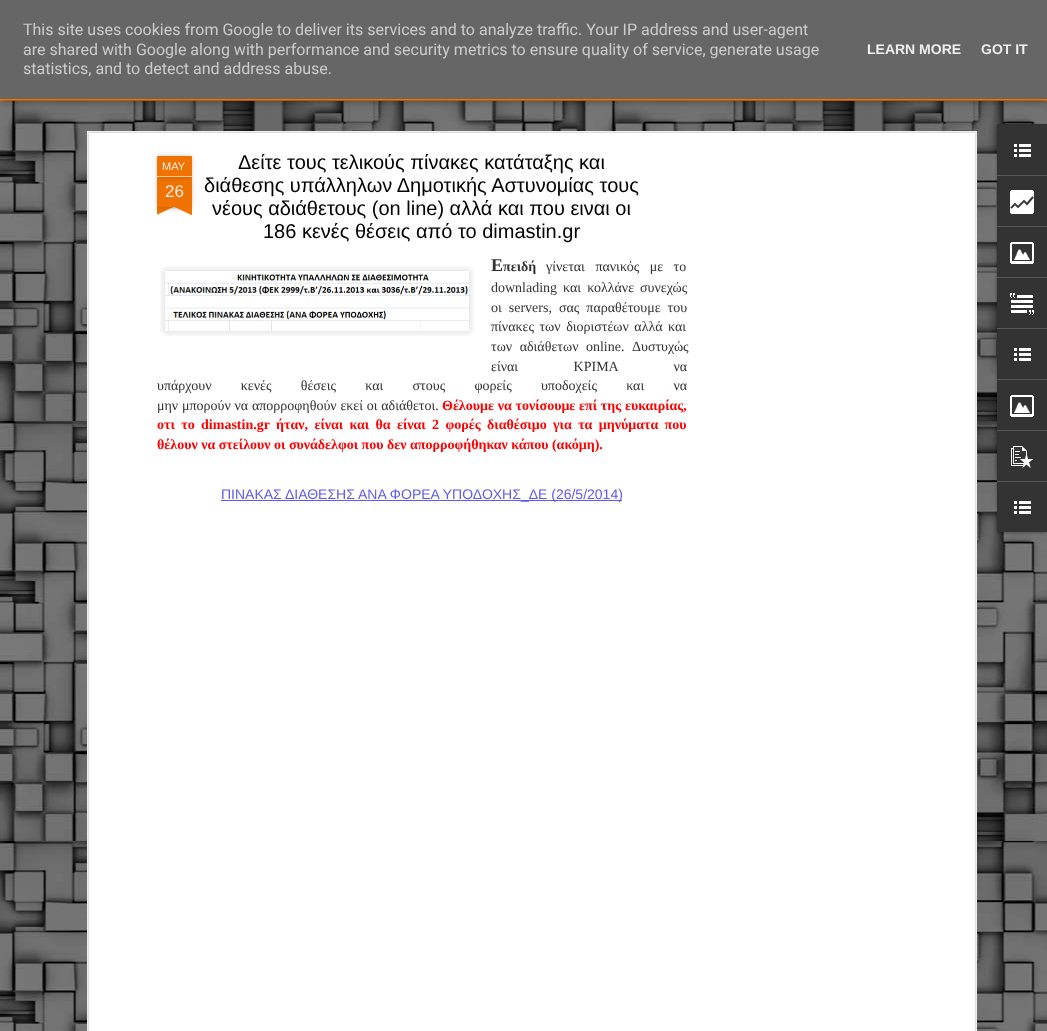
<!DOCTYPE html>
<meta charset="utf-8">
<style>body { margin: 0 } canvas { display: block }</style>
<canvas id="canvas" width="1047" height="1031"></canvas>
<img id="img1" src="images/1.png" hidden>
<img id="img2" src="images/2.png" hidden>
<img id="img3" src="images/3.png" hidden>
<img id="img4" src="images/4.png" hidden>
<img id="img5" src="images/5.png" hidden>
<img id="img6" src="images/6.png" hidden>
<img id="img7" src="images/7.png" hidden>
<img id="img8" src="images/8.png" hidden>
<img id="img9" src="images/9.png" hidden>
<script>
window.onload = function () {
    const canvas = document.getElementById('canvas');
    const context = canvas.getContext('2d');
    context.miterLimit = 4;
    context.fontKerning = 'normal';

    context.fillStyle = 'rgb(240, 115, 0)';
    context.fillRect(0, 0, 1047, 1031);
    context.drawImage(document.getElementById('img1'), 0, 101, 1047, 930);
    context.fillStyle = 'rgba(0, 0, 0, 0.5)';
    context.filter = 'blur(4px)';
    context.beginPath();
    context.rect(0, 65, 1047, 35);
    context.fill();
    context.filter = 'none';
    context.fillStyle = 'rgb(102, 102, 102)';
    context.fillRect(0, 0, 1047, 99);
    context.fillStyle = 'rgb(240, 115, 0)';
    context.fillRect(0, 99, 1047, 1);
    context.fillStyle = 'rgb(255, 255, 255)';
    context.fillRect(87, 131, 890, 900);
    context.drawImage(document.getElementById('img2'), 87, 131, 890, 900);
    context.fillStyle = 'rgba(0, 0, 0, 0.2)';
    context.filter = 'blur(2.5px)';
    context.beginPath();
    context.rect(157, 177, 35, 30);
    context.fill();
    context.filter = 'none';
    context.fillStyle = 'rgb(240, 115, 0)';
    context.fillRect(157, 177, 35, 30);
    context.fillStyle = 'rgba(0, 0, 0, 0.2)';
    context.filter = 'blur(2.5px)';
    context.beginPath();
    context.roundRect(157, 156, 35, 21, 1);
    context.fill();
    context.filter = 'none';
    context.fillStyle = 'rgb(240, 115, 0)';
    context.beginPath();
    context.roundRect(157, 156, 35, 21, [1, 1, 0, 0]);
    context.fill();
    context.fillStyle = 'rgb(249, 199, 153)';
    context.fillRect(157, 176, 35, 1);
    context.save();
    context.beginPath();
    context.rect(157, 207, 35, 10);
    context.clip();
    context.fillStyle = 'rgba(0, 0, 0, 0.2)';
    context.filter = 'blur(2.5px)';
    context.beginPath();
    context.rect(148, 197, 50, 10);
    context.fill();
    context.filter = 'none';
    context.restore();
    context.save();
    context.beginPath();
    context.rect(157, 207, 35, 10);
    context.clip();
    context.fillStyle = 'rgb(240, 115, 0)';
    context.beginPath();
    context.moveTo(148, 208);
    context.lineTo(193, 187);
    context.lineTo(197, 196);
    context.lineTo(152, 217);
    context.closePath();
    context.fill();
    context.restore();
    context.save();
    context.beginPath();
    context.rect(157, 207, 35, 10);
    context.clip();
    context.fillStyle = 'rgba(0, 0, 0, 0.2)';
    context.filter = 'blur(2.5px)';
    context.beginPath();
    context.rect(151, 197, 50, 10);
    context.fill();
    context.filter = 'none';
    context.restore();
    context.save();
    context.beginPath();
    context.rect(157, 207, 35, 10);
    context.clip();
    context.fillStyle = 'rgb(240, 115, 0)';
    context.beginPath();
    context.moveTo(155, 187);
    context.lineTo(200, 208);
    context.lineTo(196, 217);
    context.lineTo(151, 196);
    context.closePath();
    context.fill();
    context.restore();
    context.drawImage(document.getElementById('img3'), 160, 266, 314, 70);
    context.drawImage(document.getElementById('img4'), 165, 274, 304, 57);
    context.fillStyle = 'rgb(91, 91, 244)';
    context.fillRect(221, 500, 401, 1);
    context.fillStyle = 'rgba(0, 0, 0, 0.3)';
    context.filter = 'blur(1.5px)';
    context.beginPath();
    context.roundRect(997, 125, 50, 408, 2);
    context.fill();
    context.filter = 'none';
    context.fillStyle = 'rgb(51, 51, 51)';
    context.beginPath();
    context.roundRect(997, 124, 50, 408, [2, 0, 0, 2]);
    context.fill();
    context.beginPath();
    context.roundRect(997, 124, 50, 51, [2, 0, 0, 0]);
    context.fill();
    context.drawImage(document.getElementById('img5'), 1014, 144, 17, 13);
    context.fillStyle = 'rgb(88, 88, 88)';
    context.fillRect(997, 175, 50, 1);
    context.drawImage(document.getElementById('img6'), 1010, 190, 24, 24);
    context.fillRect(997, 226, 50, 1);
    context.drawImage(document.getElementById('img7'), 1010, 242, 24, 22);
    context.fillRect(997, 277, 50, 1);
    context.drawImage(document.getElementById('img8'), 1010, 293, 24, 22);
    context.fillRect(997, 328, 50, 1);
    context.drawImage(document.getElementById('img5'), 1014, 348, 17, 13);
    context.fillRect(997, 379, 50, 1);
    context.drawImage(document.getElementById('img7'), 1010, 395, 24, 22);
    context.fillRect(997, 430, 50, 1);
    context.drawImage(document.getElementById('img9'), 1011, 446, 22, 22);
    context.fillRect(997, 481, 50, 1);
    context.drawImage(document.getElementById('img5'), 1014, 501, 17, 13);
    context.font = '16px Roboto';
    context.fillStyle = 'rgb(204, 204, 204)';
    context.fillText('This site uses cookies from Google to deliver its services and to analyze traffic. Your IP address and user-agent', 23, 35);
    context.fillText('are shared with Google along with performance and security metrics to ensure quality of service, generate usage', 23, 55);
    context.fillText('statistics, and to detect and address abuse.', 23, 74);
    context.font = 'bold 14px Liberation Sans';
    context.fillStyle = 'rgb(238, 238, 238)';
    context.fillText('LEARN MORE', 867, 54);
    context.fillText('GOT IT', 981, 54);
    context.font = '11px Liberation Sans';
    context.fillText('MAY', 162, 170);
    context.font = '17px Liberation Sans';
    context.fillText('26', 165, 197);
    context.font = '20px Liberation Sans';
    context.fillStyle = 'rgb(0, 0, 0)';
    context.fillText('Δείτε τους τελικούς πίνακες κατάταξης και', 238, 169);
    context.fillText('διάθεσης υπάλληλων Δημοτικής Αστυνομίας τους', 204, 192);
    context.fillText('νέους αδιάθετους (on line) αλλά και που ειναι οι', 212, 215);
    context.fillText('186 κενές θέσεις από το dimastin.gr', 263, 238);
    context.font = 'bold 18px Liberation Serif';
    context.fillStyle = 'rgb(51, 51, 51)';
    context.fillText('Ε', 491, 271);
    context.font = 'bold 14px Liberation Serif';
    context.fillText('πειδή', 503, 271);
    context.wordSpacing = '7px';
    context.font = '14px Liberation Serif';
    context.fillText('γίνεται πανικός με το', 546, 271);
    context.wordSpacing = '2.5px';
    context.fillText('downlading και κολλάνε συνεχώς', 491, 292);
    context.wordSpacing = '3.5px';
    context.fillText('οι servers, σας παραθέτουμε του', 491, 312);
    context.wordSpacing = '2px';
    context.fillText('πίνακες των διοριστέων αλλά και', 491, 331);
    context.wordSpacing = '4px';
    context.fillText('των αδιάθετων online. Δυστυχώς', 491, 351);
    context.wordSpacing = '52px';
    context.fillText('είναι ΚΡΙΜΑ να', 491, 371);
    context.wordSpacing = '25.75px';
    context.fillText('υπάρχουν κενές θέσεις και στους φορείς υποδοχείς και να', 157, 390);
    context.wordSpacing = '0.25px';
    context.fillText('μην μπορούν να απορροφηθούν εκεί οι αδιάθετοι.', 157, 410);
    context.font = 'bold 14px Liberation Serif';
    context.fillStyle = 'rgb(255, 0, 0)';
    context.fillText('Θέλουμε να τονίσουμε επί της ευκαιρίας,', 442, 410);
    context.wordSpacing = '2.9px';
    context.fillText('οτι το dimastin.gr ήταν, είναι και θα είναι 2 φορές διαθέσιμο για τα μηνύματα που', 157, 429);
    context.wordSpacing = '0px';
    context.fillText('θέλουν να στείλουν οι συνάδελφοι που δεν απορροφήθηκαν κάπου (ακόμη).', 157, 449);
    context.font = '14px Liberation Sans';
    context.fillStyle = 'rgb(91, 91, 244)';
    context.fillText('ΠΙΝΑΚΑΣ ΔΙΑΘΕΣΗΣ ΑΝΑ ΦΟΡΕΑ ΥΠΟΔΟΧΗΣ_ΔΕ (26/5/2014)', 221, 499);
};
</script>
